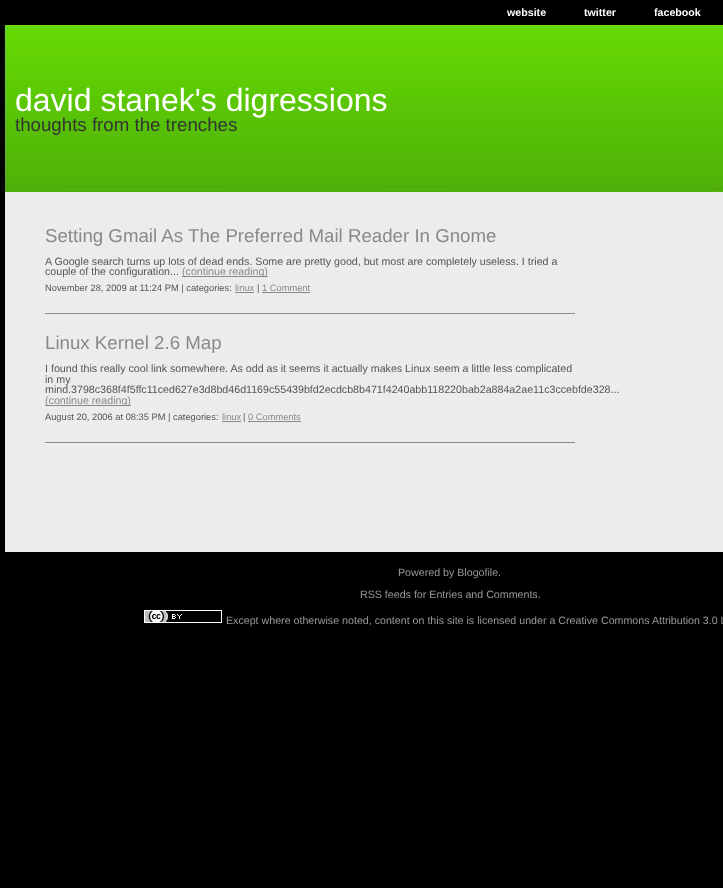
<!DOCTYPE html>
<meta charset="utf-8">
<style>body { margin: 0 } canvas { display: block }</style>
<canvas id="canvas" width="723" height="888"></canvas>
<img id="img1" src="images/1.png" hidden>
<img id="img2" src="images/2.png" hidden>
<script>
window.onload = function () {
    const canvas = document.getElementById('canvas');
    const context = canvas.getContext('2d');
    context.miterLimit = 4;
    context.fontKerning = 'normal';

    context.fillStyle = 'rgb(0, 0, 0)';
    context.fillRect(0, 0, 723, 888);
    context.drawImage(document.getElementById('img1'), 0, 25, 723, 167);
    context.fillStyle = 'rgb(236, 236, 236)';
    context.fillRect(5, 192, 718, 360);
    context.fillStyle = 'rgb(137, 137, 137)';
    context.fillRect(45, 313, 530, 1);
    context.fillRect(182, 276, 86, 1);
    context.fillRect(235, 292, 19, 1);
    context.fillRect(262, 292, 48, 1);
    context.fillRect(45, 442, 530, 1);
    context.fillRect(45, 405, 86, 1);
    context.fillRect(222, 421, 19, 1);
    context.fillRect(248, 421, 53, 1);
    context.drawImage(document.getElementById('img2'), 144, 610, 78, 13);
    context.font = 'bold 10.67px Liberation Sans';
    context.fillStyle = 'rgb(255, 255, 255)';
    context.fillText('website', 507, 16);
    context.fillText('twitter', 584, 16);
    context.fillText('facebook', 654, 16);
    context.font = '32px Liberation Sans';
    context.fillText('david stanek\'s digressions', 15, 111);
    context.font = '18.7px Liberation Sans';
    context.fillStyle = 'rgb(51, 51, 51)';
    context.fillText('thoughts from the trenches', 15, 131);
    context.fillStyle = 'rgb(137, 137, 137)';
    context.fillText('Setting Gmail As The Preferred Mail Reader In Gnome', 45, 242);
    context.font = '10.67px Liberation Sans';
    context.fillStyle = 'rgb(85, 85, 85)';
    context.fillText('A Google search turns up lots of dead ends. Some are pretty good, but most are completely useless. I tried a', 45, 265);
    context.fillText('couple of the configuration...', 45, 275);
    context.fillStyle = 'rgb(137, 137, 137)';
    context.fillText('(continue reading)', 182, 275);
    context.font = '9.3px Liberation Sans';
    context.fillStyle = 'rgb(85, 85, 85)';
    context.fillText('November 28, 2009 at 11:24 PM | categories:', 45, 291);
    context.fillStyle = 'rgb(137, 137, 137)';
    context.fillText('linux', 235, 291);
    context.fillStyle = 'rgb(85, 85, 85)';
    context.fillText('|', 257, 291);
    context.fillStyle = 'rgb(137, 137, 137)';
    context.fillText('1 Comment', 262, 291);
    context.font = '18.7px Liberation Sans';
    context.fillText('Linux Kernel 2.6 Map', 45, 349);
    context.font = '10.67px Liberation Sans';
    context.fillStyle = 'rgb(85, 85, 85)';
    context.fillText('I found this really cool link somewhere. As odd as it seems it actually makes Linux seem a little less complicated', 45, 372);
    context.fillText('in my', 45, 383);
    context.fillText('mind.3798c368f4f5ffc11ced627e3d8bd46d1169c55439bfd2ecdcb8b471f4240abb118220bab2a884a2ae11c3ccebfde328...', 45, 393);
    context.fillStyle = 'rgb(137, 137, 137)';
    context.fillText('(continue reading)', 45, 404);
    context.font = '9.3px Liberation Sans';
    context.fillStyle = 'rgb(85, 85, 85)';
    context.fillText('August 20, 2006 at 08:35 PM | categories:', 45, 420);
    context.fillStyle = 'rgb(137, 137, 137)';
    context.fillText('linux', 222, 420);
    context.fillStyle = 'rgb(85, 85, 85)';
    context.fillText('|', 243, 420);
    context.fillStyle = 'rgb(137, 137, 137)';
    context.fillText('0 Comments', 248, 420);
    context.font = '10.67px Liberation Sans';
    context.fillStyle = 'rgb(153, 153, 153)';
    context.fillText('Powered by Blogofile.', 398, 576);
    context.fillText('RSS feeds for Entries and Comments.', 360, 598);
    context.fillText('Except where otherwise noted, content on this site is licensed under a Creative Commons Attribution 3.0 L', 226, 624);
};
</script>
